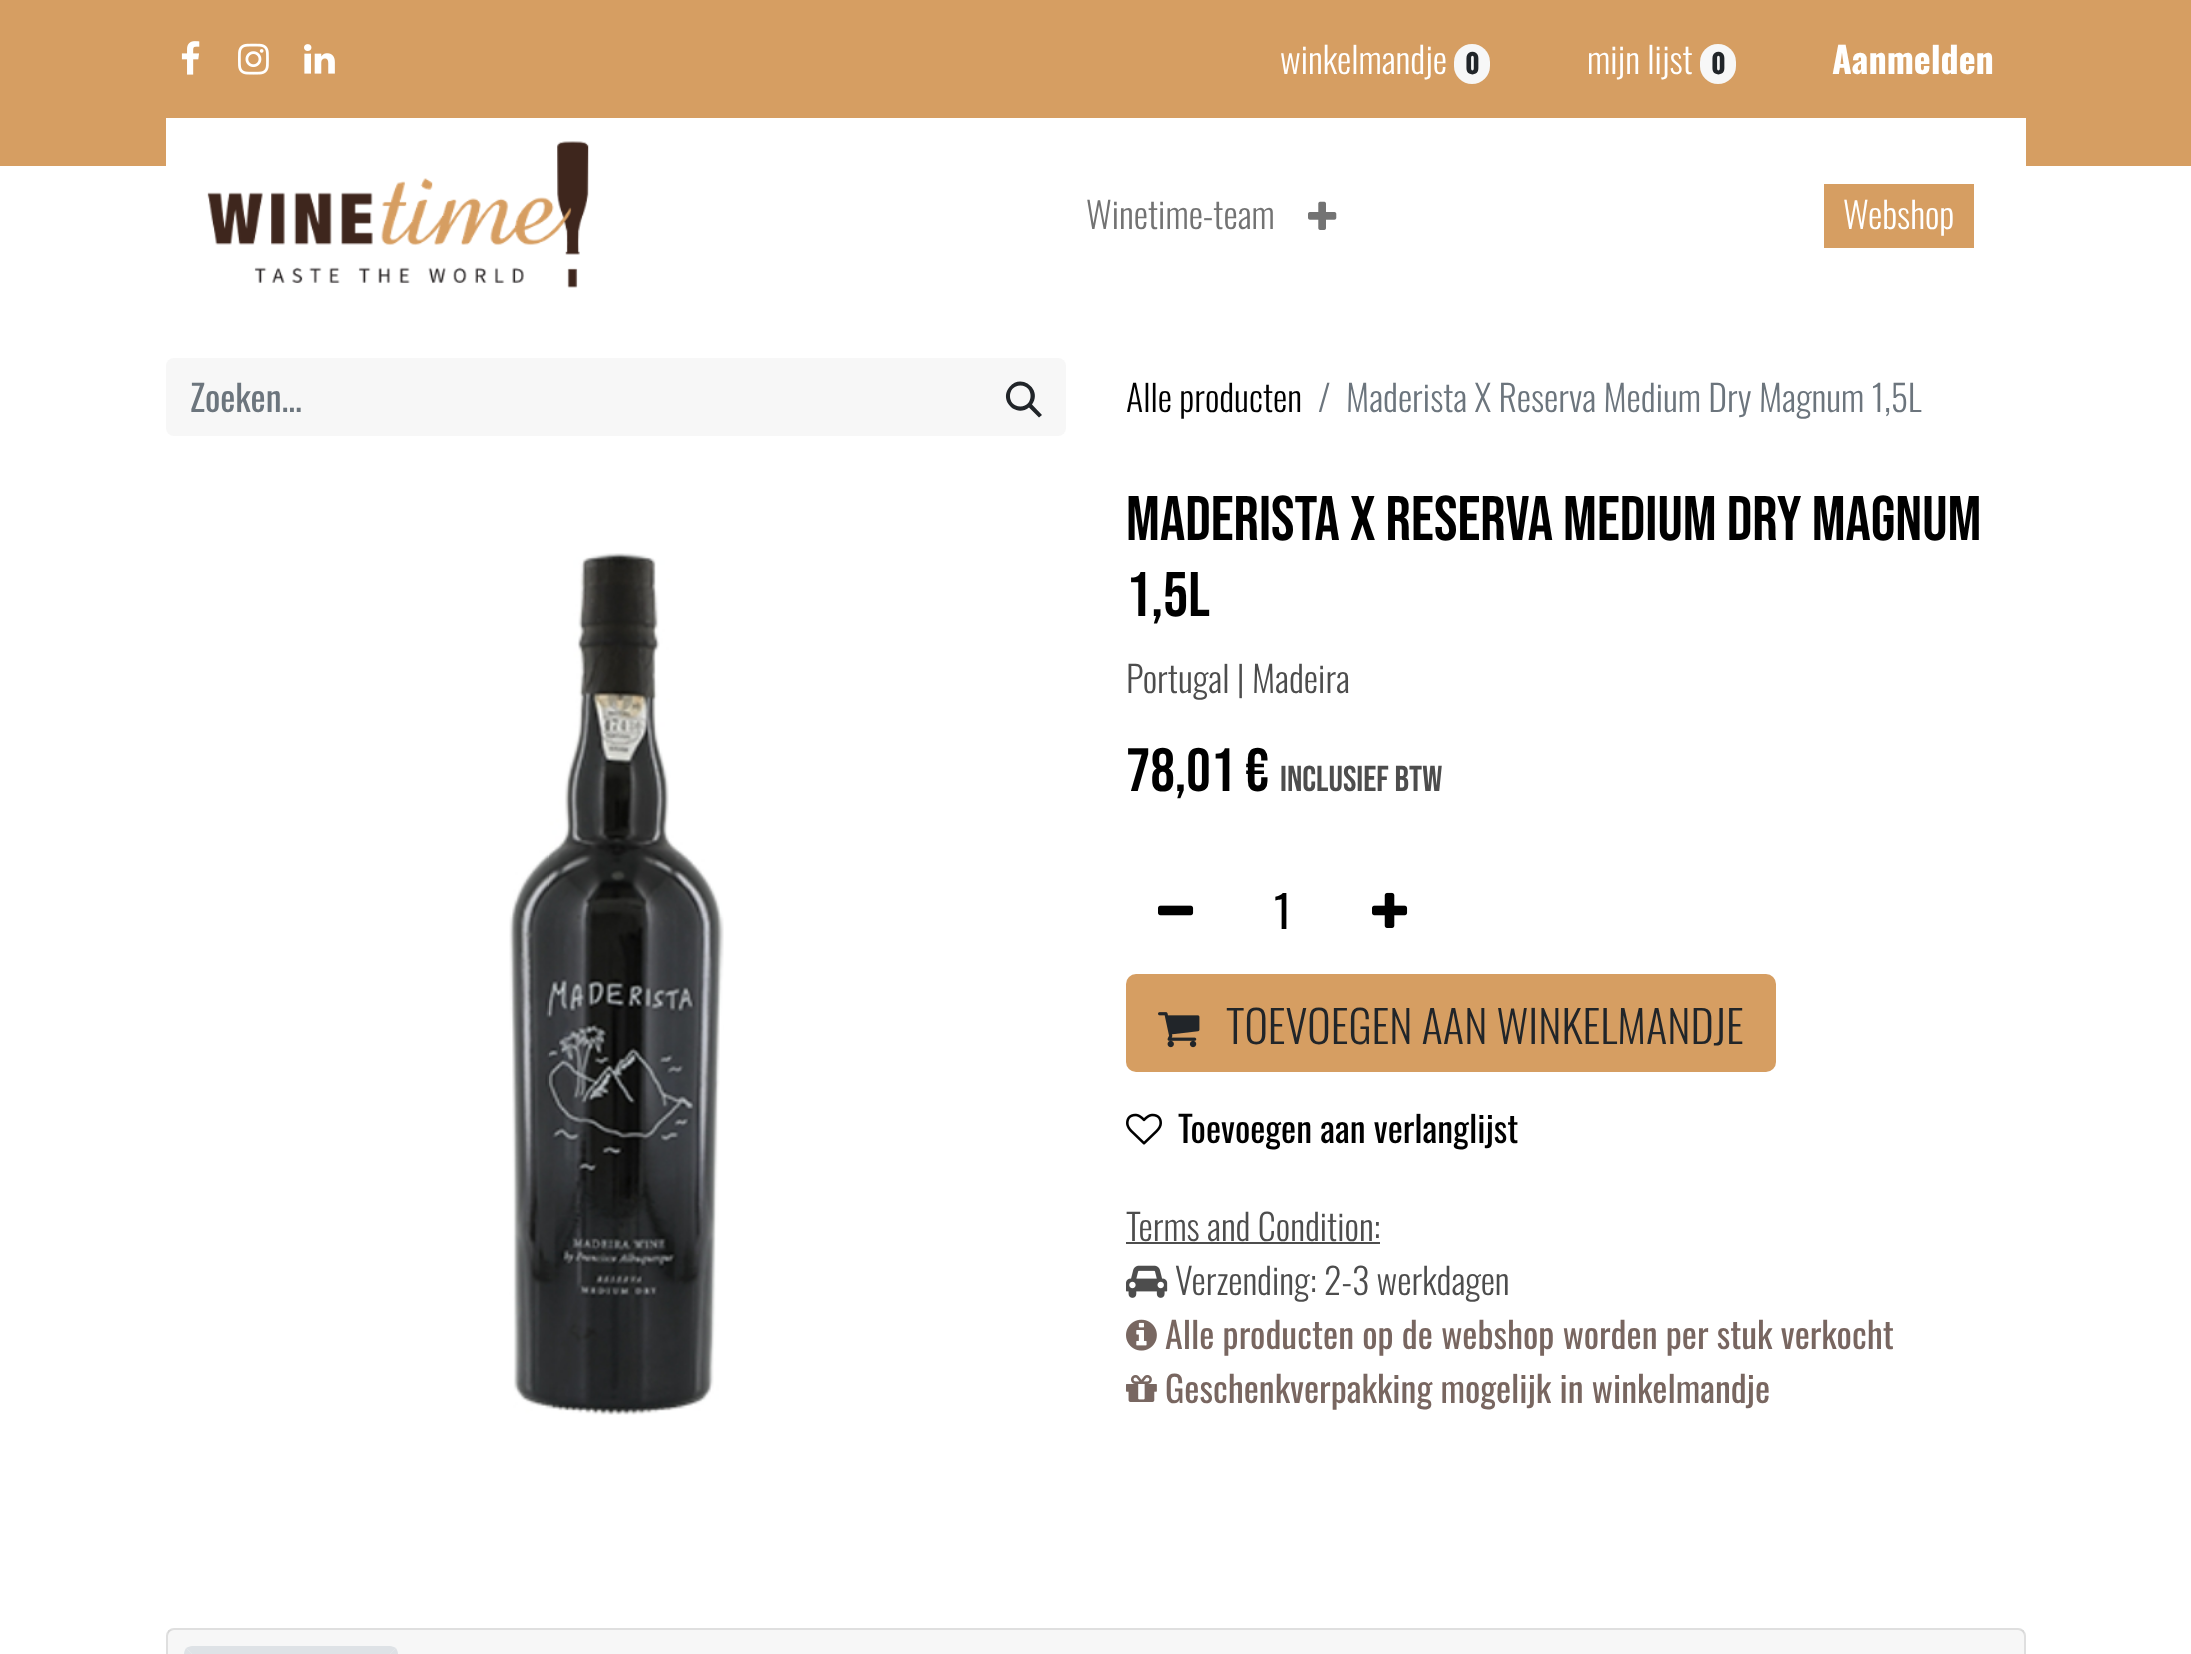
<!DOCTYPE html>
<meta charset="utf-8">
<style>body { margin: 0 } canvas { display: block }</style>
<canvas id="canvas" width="2191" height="1654"></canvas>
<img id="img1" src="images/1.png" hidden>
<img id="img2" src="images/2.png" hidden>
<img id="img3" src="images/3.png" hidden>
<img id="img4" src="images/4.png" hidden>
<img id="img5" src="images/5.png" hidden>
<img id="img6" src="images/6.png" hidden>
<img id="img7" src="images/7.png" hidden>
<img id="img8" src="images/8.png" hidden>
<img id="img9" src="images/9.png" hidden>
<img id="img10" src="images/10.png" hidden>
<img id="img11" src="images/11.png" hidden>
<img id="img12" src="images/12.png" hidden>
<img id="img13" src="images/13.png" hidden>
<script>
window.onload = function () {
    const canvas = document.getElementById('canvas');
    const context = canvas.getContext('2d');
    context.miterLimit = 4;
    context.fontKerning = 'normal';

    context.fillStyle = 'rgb(255, 255, 255)';
    context.fillRect(0, 0, 2191, 1654);
    context.fillStyle = 'rgb(214, 158, 98)';
    context.fillRect(0, 0, 2191, 166);
    context.drawImage(document.getElementById('img1'), 181, 41, 19, 34);
    context.drawImage(document.getElementById('img2'), 238, 43, 31, 32);
    context.drawImage(document.getElementById('img3'), 304, 44, 31, 30);
    context.fillStyle = 'rgb(247, 247, 247)';
    context.beginPath();
    context.roundRect(1454, 44, 36, 40, 18);
    context.fill();
    context.beginPath();
    context.roundRect(1700, 44, 36, 40, 18);
    context.fill();
    context.fillStyle = 'rgb(255, 255, 255)';
    context.fillRect(166, 118, 1860, 48);
    context.drawImage(document.getElementById('img4'), 207, 141, 382, 147);
    context.drawImage(document.getElementById('img5'), 1308, 201, 29, 29);
    context.fillStyle = 'rgb(214, 158, 98)';
    context.fillRect(1824, 184, 150, 64);
    context.fillStyle = 'rgb(247, 247, 247)';
    context.beginPath();
    context.roundRect(166, 358, 816, 78, [8, 0, 0, 8]);
    context.fill();
    context.beginPath();
    context.roundRect(982, 358, 84, 78, [0, 8, 8, 0]);
    context.fill();
    context.fillStyle = 'rgb(33, 37, 41)';
    context.beginPath();
    context.moveTo(1009.5, 387);
    context.bezierCurveTo(1021, 372.5, 1043, 389.5, 1032, 404.5);
    context.lineTo(1042, 415);
    context.lineTo(1039, 417.5);
    context.lineTo(1029, 407.5);
    context.bezierCurveTo(1015.5, 418, 998.5, 400, 1009.5, 387);
    context.closePath();
    context.moveTo(1020.5, 385.5);
    context.bezierCurveTo(1006.5, 385.5, 1006.5, 406.5, 1020.5, 406.5);
    context.bezierCurveTo(1034, 406.5, 1034, 385.5, 1020.5, 385.5);
    context.closePath();
    context.fill();
    context.drawImage(document.getElementById('img6'), 509, 553, 215, 862);
    context.drawImage(document.getElementById('img7'), 1158, 905, 36, 11);
    context.drawImage(document.getElementById('img8'), 1372, 892, 36, 36);
    context.fillStyle = 'rgb(214, 158, 98)';
    context.beginPath();
    context.roundRect(1126, 974, 650, 98, 10);
    context.fill();
    context.drawImage(document.getElementById('img9'), 1158, 1012, 42, 36);
    context.drawImage(document.getElementById('img10'), 1126, 1113, 36, 32);
    context.fillStyle = 'rgb(77, 77, 77)';
    context.fillRect(1126, 1242, 254, 2);
    context.drawImage(document.getElementById('img11'), 1126, 1265, 42, 33);
    context.drawImage(document.getElementById('img12'), 1126, 1319, 31, 32);
    context.drawImage(document.getElementById('img13'), 1126, 1375, 31, 27);
    context.beginPath();
    context.roundRect(167, 1629, 1858, 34, 7);
    context.strokeStyle = 'rgb(223, 223, 223)';
    context.lineWidth = 2;
    context.stroke();
    context.fillStyle = 'rgba(0, 0, 0, 0.03)';
    context.fillRect(168, 1630, 1856, 24);
    context.fillStyle = 'rgb(222, 226, 230)';
    context.beginPath();
    context.moveTo(192, 1646);
    context.lineTo(390, 1646);
    context.bezierCurveTo(392, 1646, 394, 1647, 396, 1648);
    context.lineTo(353, 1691);
    context.lineTo(229, 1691);
    context.lineTo(186, 1648);
    context.bezierCurveTo(188, 1647, 190, 1646, 192, 1646);
    context.closePath();
    context.fill();
    context.beginPath();
    context.moveTo(396, 1648);
    context.lineTo(353, 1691);
    context.lineTo(398, 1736);
    context.lineTo(398, 1654);
    context.bezierCurveTo(398, 1652, 397, 1650, 396, 1648);
    context.closePath();
    context.fill();
    context.beginPath();
    context.moveTo(184, 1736);
    context.lineTo(184, 1654);
    context.bezierCurveTo(184, 1652, 185, 1650, 186, 1648);
    context.lineTo(229, 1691);
    context.closePath();
    context.fill();
    context.font = '300 36px Oswald';
    context.fillStyle = 'rgb(255, 255, 255)';
    context.fillText('winkelmandje', 1280, 74);
    context.font = 'bold 27px Oswald';
    context.fillStyle = 'rgb(33, 37, 41)';
    context.fillText('0', 1465, 74);
    context.font = '300 36px Oswald';
    context.fillStyle = 'rgb(255, 255, 255)';
    context.fillText('mijn lijst', 1587, 74);
    context.font = 'bold 27px Oswald';
    context.fillStyle = 'rgb(33, 37, 41)';
    context.fillText('0', 1711, 74);
    context.font = 'bold 36px Oswald';
    context.fillStyle = 'rgb(255, 255, 255)';
    context.fillText('Aanmelden', 1832, 74);
    context.font = '300 36px Oswald';
    context.fillStyle = 'rgb(115, 115, 115)';
    context.fillText('Winetime-team', 1086, 229);
    context.fillStyle = 'rgb(255, 255, 255)';
    context.fillText('Webshop', 1843, 229);
    context.font = '36px Oswald';
    context.fillStyle = 'rgb(108, 117, 125)';
    context.fillText('Zoeken...', 190, 412);
    context.font = '300 36px Oswald';
    context.fillStyle = 'rgb(0, 0, 0)';
    context.fillText('Alle producten', 1126, 412);
    context.fillStyle = 'rgb(108, 117, 125)';
    context.fillText('/', 1318, 412);
    context.fillText('Maderista X Reserva Medium Dry Magnum 1,5L', 1346, 412);
    context.font = '63px Bebas Neue';
    context.fillStyle = 'rgb(0, 0, 0)';
    context.fillText('Maderista X Reserva Medium Dry Magnum', 1126, 540);
    context.fillText('1,5L', 1126, 616);
    context.font = '300 36px Oswald';
    context.fillStyle = 'rgb(77, 77, 77)';
    context.fillText('Portugal | Madeira', 1126, 693);
    context.font = '61px Bebas Neue';
    context.fillStyle = 'rgb(0, 0, 0)';
    context.fillText('78,01 €', 1126, 791);
    context.font = '36px Bebas Neue';
    context.fillStyle = 'rgb(77, 77, 77)';
    context.fillText('Inclusief btw', 1280, 791);
    context.font = '44.6px Oswald';
    context.fillStyle = 'rgb(0, 0, 0)';
    context.fillText('1', 1274, 929);
    context.font = '300 44.6px Oswald';
    context.fillStyle = 'rgb(33, 37, 41)';
    context.fillText('TOEVOEGEN AAN WINKELMANDJE', 1226, 1044);
    context.font = '36px Oswald';
    context.fillStyle = 'rgb(0, 0, 0)';
    context.fillText('Toevoegen aan verlanglijst', 1178, 1143);
    context.font = '300 36px Oswald';
    context.fillStyle = 'rgb(77, 77, 77)';
    context.fillText('Terms and Condition:', 1126, 1241);
    context.fillText('Verzending: 2-3 werkdagen', 1175, 1295);
    context.font = '36px Oswald';
    context.fillStyle = 'rgb(120, 102, 96)';
    context.fillText('Alle producten op de webshop worden per stuk verkocht', 1165, 1349);
    context.fillText('Geschenkverpakking mogelijk in winkelmandje', 1165, 1403);
};
</script>
